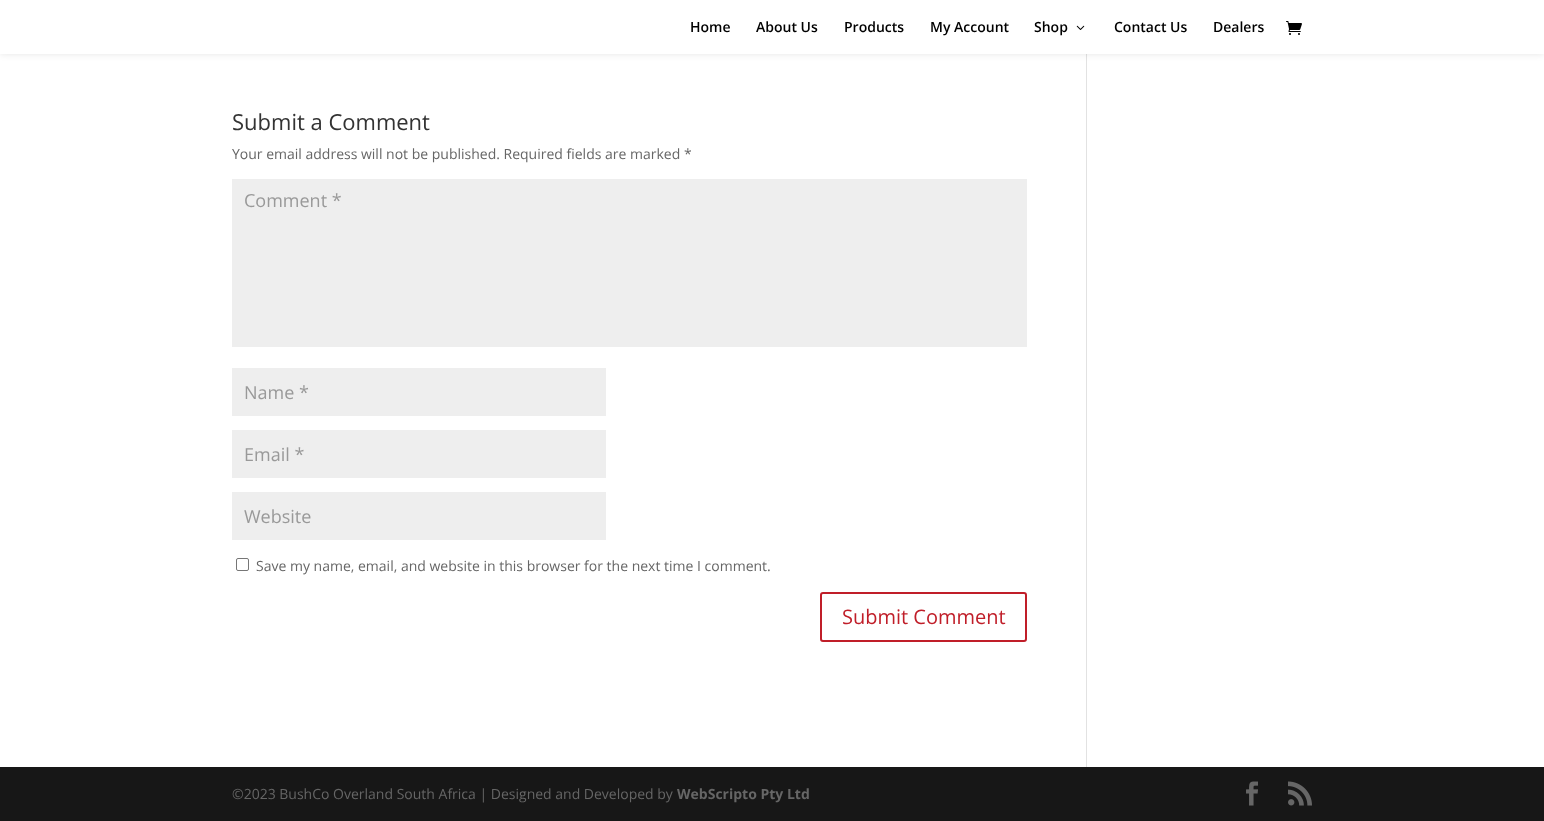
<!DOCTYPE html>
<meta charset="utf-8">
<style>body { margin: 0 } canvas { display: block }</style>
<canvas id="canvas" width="1544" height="821"></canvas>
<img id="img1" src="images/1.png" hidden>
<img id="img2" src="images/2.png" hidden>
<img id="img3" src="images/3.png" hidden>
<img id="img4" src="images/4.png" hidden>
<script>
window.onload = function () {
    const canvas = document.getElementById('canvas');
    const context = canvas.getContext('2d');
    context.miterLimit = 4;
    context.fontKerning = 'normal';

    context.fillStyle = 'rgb(255, 255, 255)';
    context.fillRect(0, 0, 1544, 821);
    context.fillStyle = 'rgb(226, 226, 226)';
    context.fillRect(1086, 54, 1, 713);
    context.fillStyle = 'rgba(0, 0, 0, 0.1)';
    context.filter = 'blur(3.5px)';
    context.beginPath();
    context.rect(0, 0, 1544, 54);
    context.fill();
    context.filter = 'none';
    context.fillStyle = 'rgb(255, 255, 255)';
    context.fillRect(0, 0, 1544, 54);
    context.drawImage(document.getElementById('img1'), 1076, 25, 9, 5);
    context.drawImage(document.getElementById('img2'), 1286, 21, 16, 14);
    context.fillStyle = 'rgb(238, 238, 238)';
    context.fillRect(232, 179, 795, 168);
    context.fillRect(232, 368, 374, 48);
    context.fillRect(232, 430, 374, 48);
    context.fillRect(232, 492, 374, 48);
    context.beginPath();
    context.roundRect(236.5, 558.5, 12, 12, 1.5);
    context.strokeStyle = 'rgb(118, 118, 118)';
    context.stroke();
    context.beginPath();
    context.roundRect(821, 593, 205, 48, 2);
    context.strokeStyle = 'rgb(192, 30, 41)';
    context.lineWidth = 2;
    context.stroke();
    context.fillStyle = 'rgb(23, 23, 23)';
    context.fillRect(0, 767, 1544, 54);
    context.drawImage(document.getElementById('img3'), 1246, 781, 12, 25);
    context.drawImage(document.getElementById('img4'), 1288, 781, 24, 25);
    context.font = '600 14px Open Sans';
    context.fillStyle = 'rgb(0, 0, 0)';
    context.fillText('Home', 690, 32);
    context.fillText('About Us', 756, 32);
    context.fillText('Products', 844, 32);
    context.fillText('My Account', 930, 32);
    context.fillText('Shop', 1034, 32);
    context.fillText('Contact Us', 1114, 32);
    context.fillText('Dealers', 1213, 32);
    context.font = '22px Open Sans';
    context.fillStyle = 'rgb(51, 51, 51)';
    context.fillText('Submit a Comment', 232, 130);
    context.font = '14px Open Sans';
    context.fillStyle = 'rgb(102, 102, 102)';
    context.fillText('Your email address will not be published. Required fields are marked *', 232, 159);
    context.font = '18px Open Sans';
    context.fillStyle = 'rgb(153, 153, 153)';
    context.fillText('Comment *', 244, 207);
    context.fillText('Name *', 244, 399);
    context.fillText('Email *', 244, 461);
    context.fillText('Website', 244, 523);
    context.font = '14px Open Sans';
    context.fillStyle = 'rgb(102, 102, 102)';
    context.fillText('Save my name, email, and website in this browser for the next time I comment.', 256, 571);
    context.font = '20px Open Sans';
    context.fillStyle = 'rgb(192, 30, 41)';
    context.fillText('Submit Comment', 842, 624);
    context.font = '14px Open Sans';
    context.fillStyle = 'rgb(102, 102, 102)';
    context.fillText('©2023 BushCo Overland South Africa | Designed and Developed by', 232, 799);
    context.font = 'bold 14px Open Sans';
    context.fillText('WebScripto Pty Ltd', 677, 799);
};
</script>
